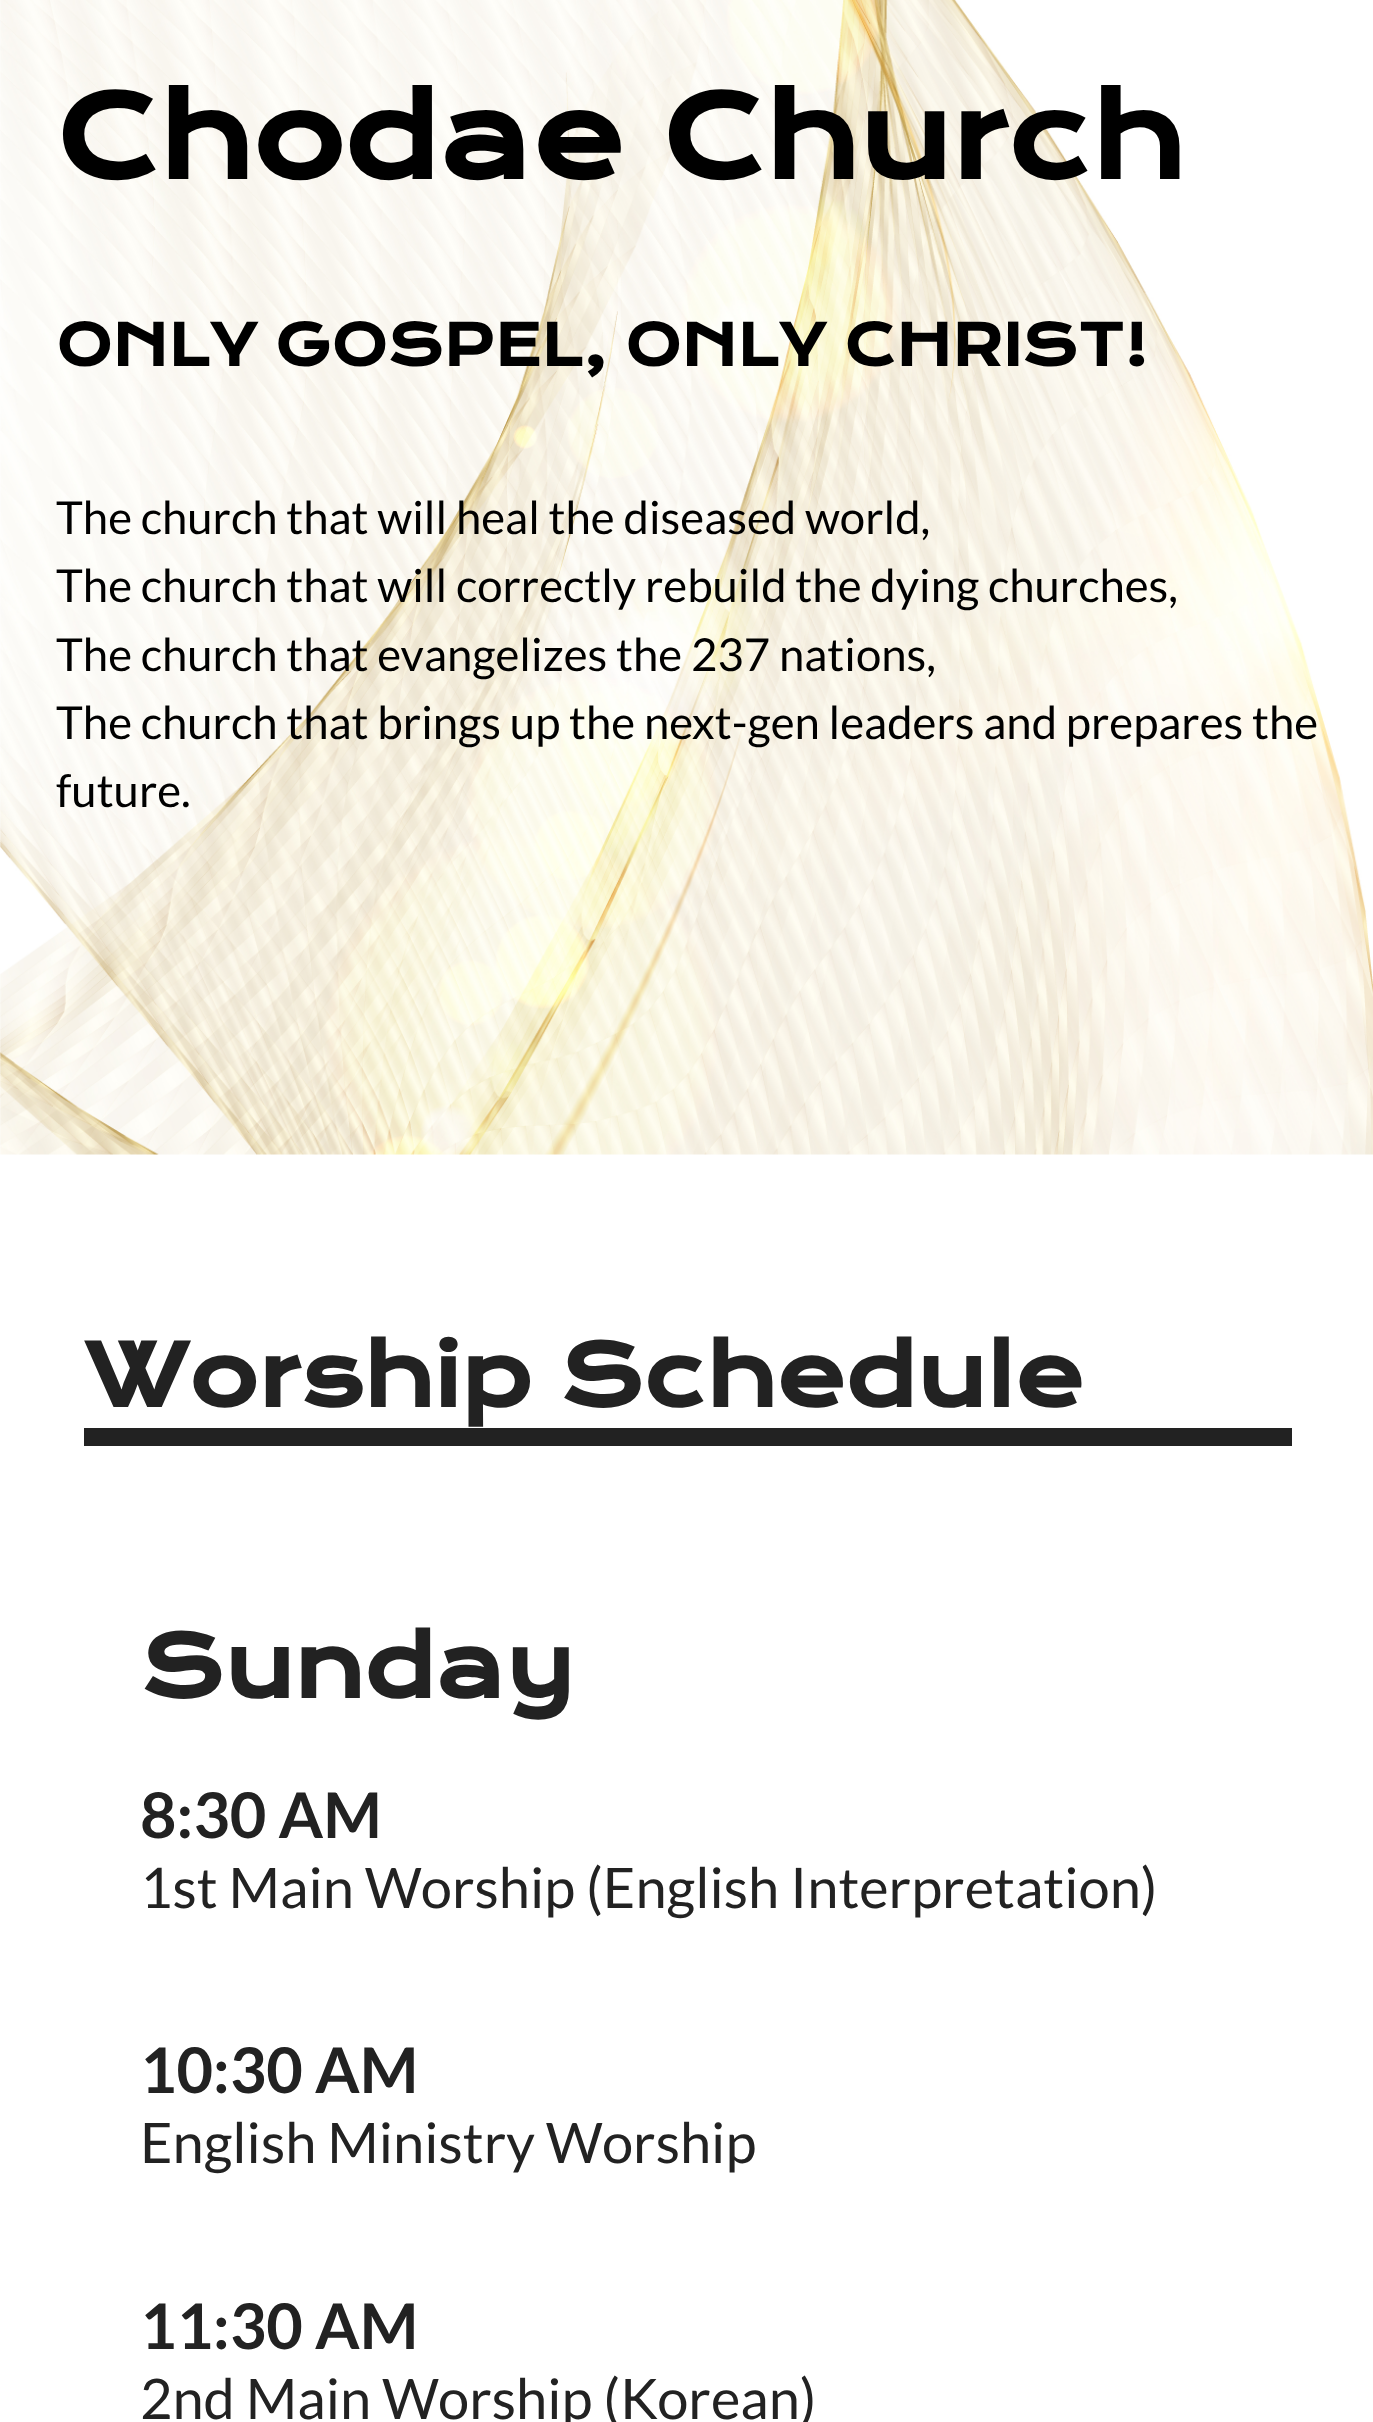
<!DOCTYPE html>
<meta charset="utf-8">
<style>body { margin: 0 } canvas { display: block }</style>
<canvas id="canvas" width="1373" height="2422"></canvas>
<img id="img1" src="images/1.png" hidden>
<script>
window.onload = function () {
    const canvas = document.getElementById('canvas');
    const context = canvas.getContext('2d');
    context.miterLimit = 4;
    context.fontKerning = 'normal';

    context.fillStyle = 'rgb(255, 255, 255)';
    context.fillRect(0, 0, 1373, 2422);
    context.drawImage(document.getElementById('img1'), 0, 0, 1373, 1155);
    context.fillStyle = 'rgb(34, 34, 34)';
    context.fillRect(84, 1428, 1208, 18);
    context.font = 'bold 112px Krona One';
    context.fillStyle = 'rgb(0, 0, 0)';
    context.fillText('Chodae Church', 56, 179);
    context.font = 'bold 56px Krona One';
    context.fillText('ONLY GOSPEL, ONLY CHRIST!', 56, 366);
    context.font = '45.5px Lato';
    context.fillText('The church that will heal the diseased world,', 56, 534);
    context.fillText('The church that will correctly rebuild the dying churches,', 56, 602);
    context.fillText('The church that evangelizes the 237 nations,', 56, 671);
    context.fillText('The church that brings up the next-gen leaders and prepares the', 56, 739);
    context.fillText('future.', 56, 807);
    context.font = 'bold 84px Krona One';
    context.fillStyle = 'rgb(34, 34, 34)';
    context.fillText('Worship Schedule', 84, 1407);
    context.fillText('Sunday', 140, 1698);
    context.font = 'bold 63px Lato';
    context.fillText('8:30 AM', 140, 1838);
    context.font = '56px Lato';
    context.fillText('1st Main Worship (English Interpretation)', 140, 1908);
    context.font = 'bold 63px Lato';
    context.fillText('10:30 AM', 140, 2093);
    context.font = '56px Lato';
    context.fillText('English Ministry Worship', 140, 2163);
    context.font = 'bold 63px Lato';
    context.fillText('11:30 AM', 140, 2349);
    context.font = '56px Lato';
    context.fillText('2nd Main Worship (Korean)', 140, 2419);
};
</script>
